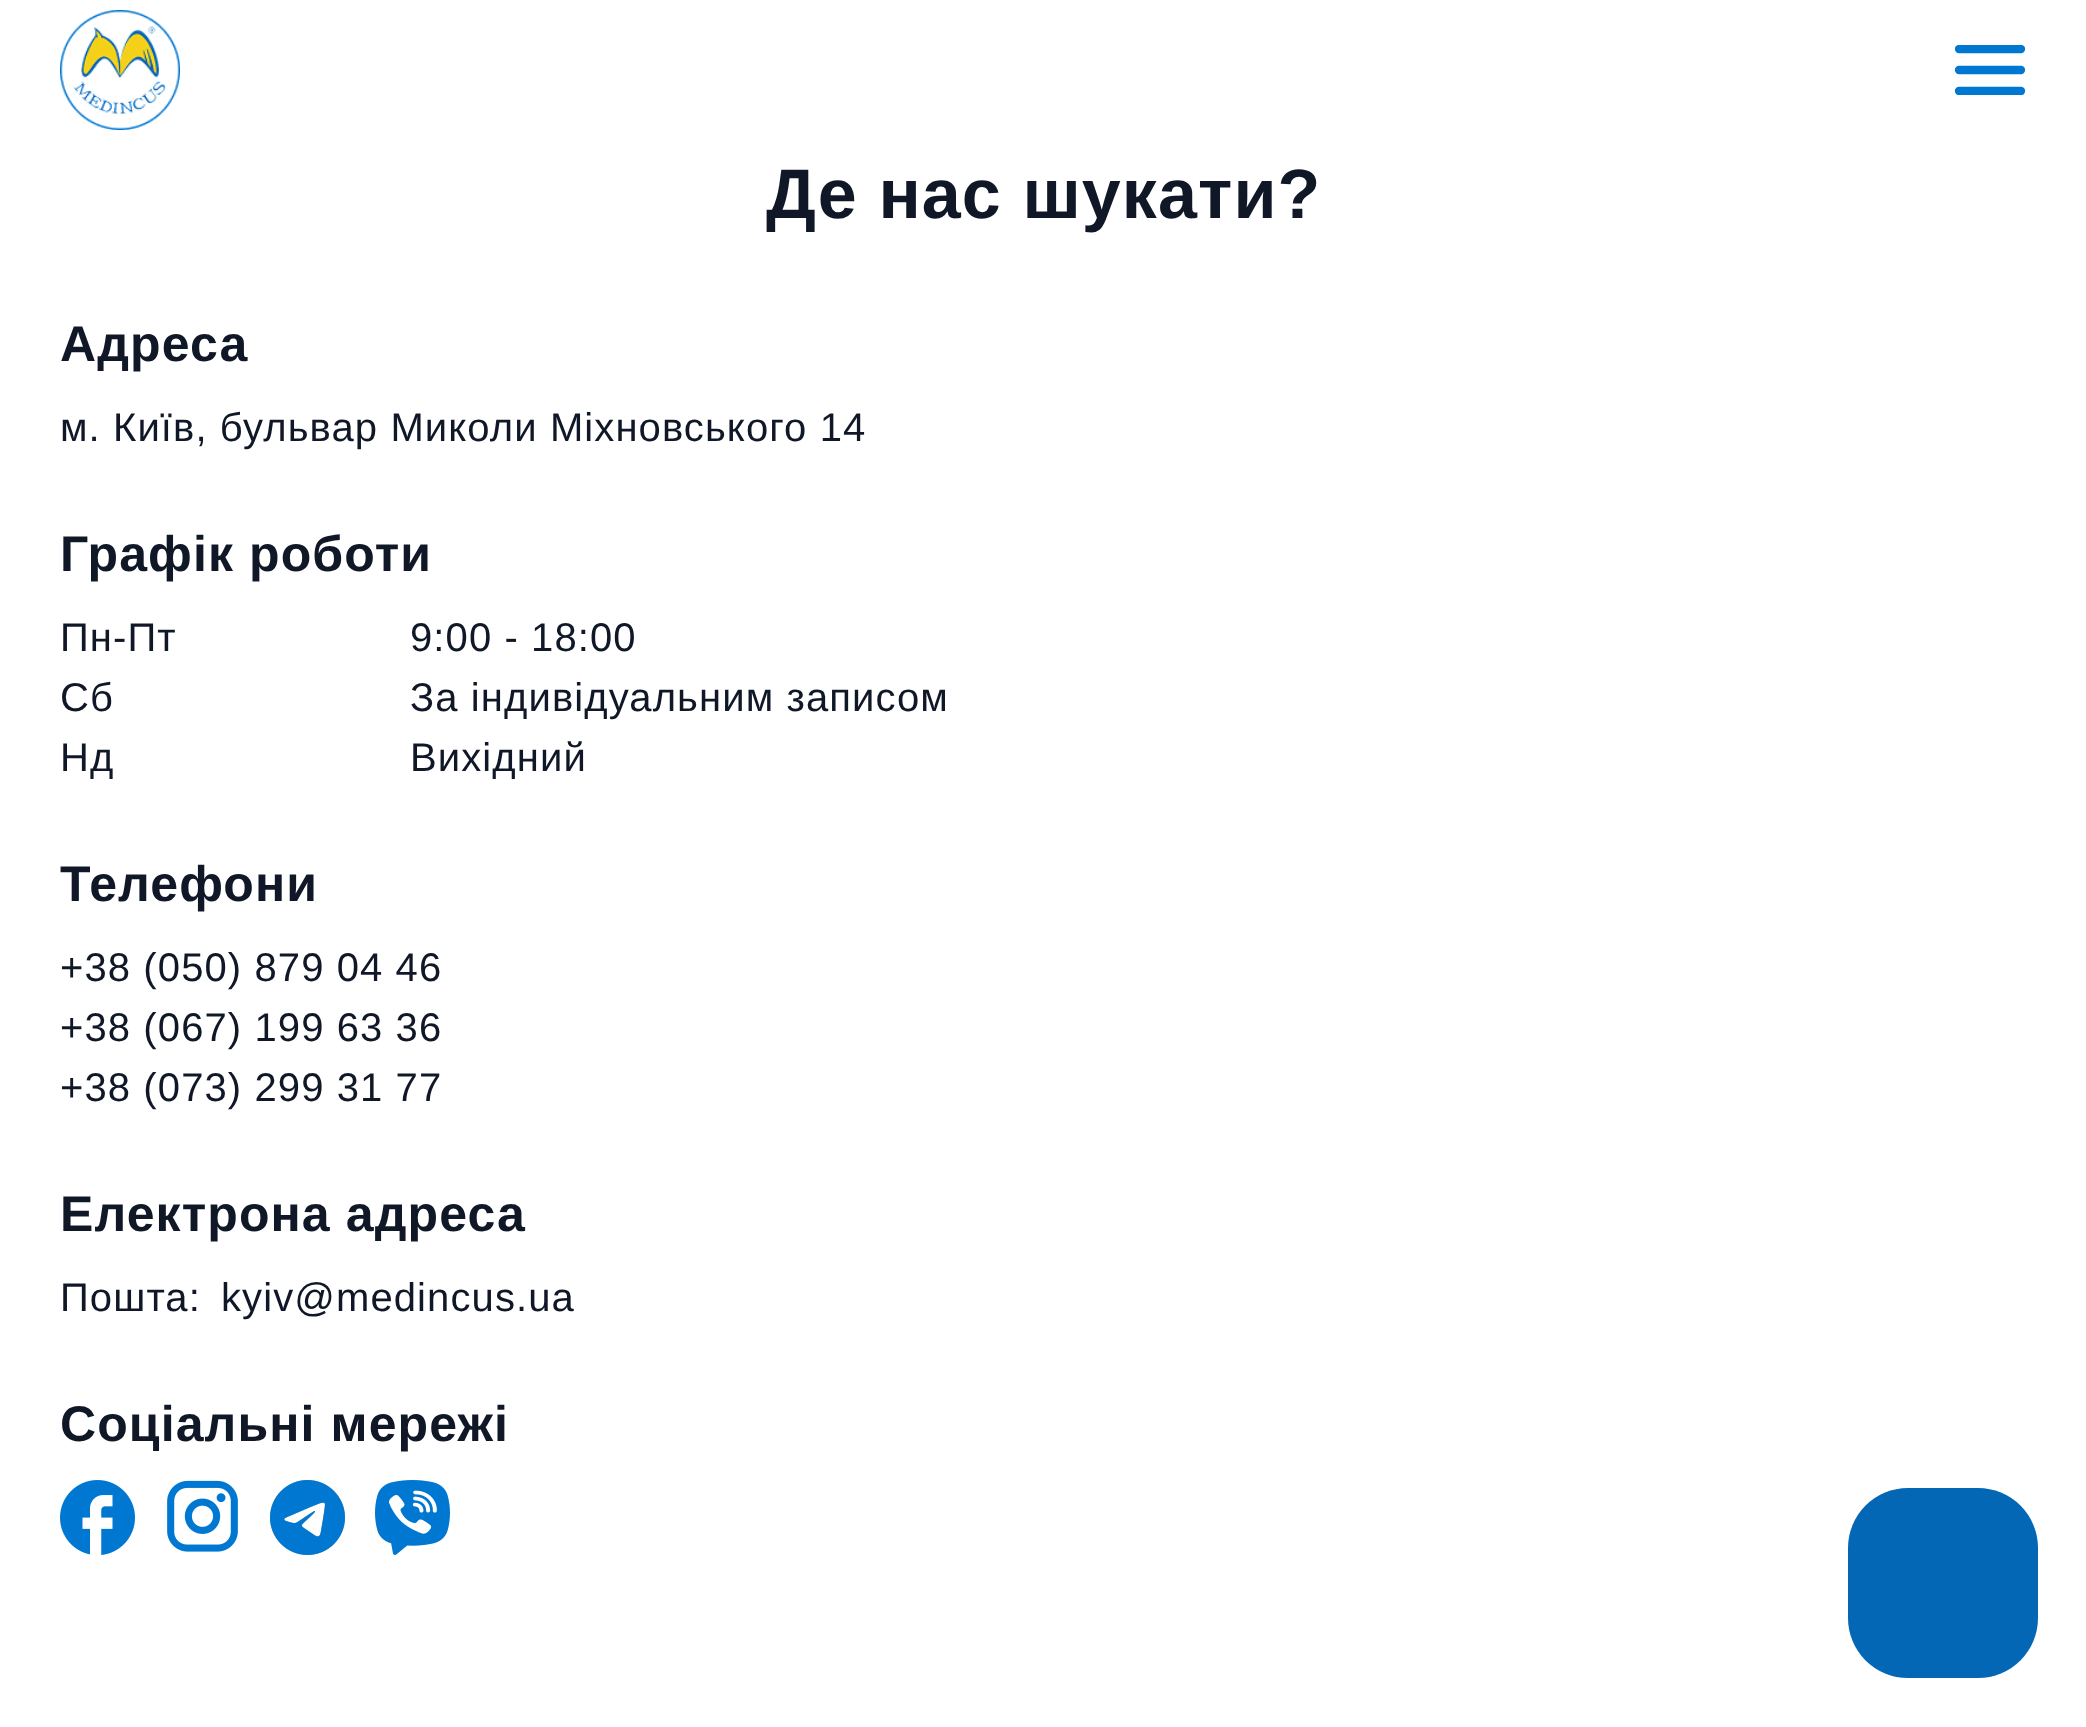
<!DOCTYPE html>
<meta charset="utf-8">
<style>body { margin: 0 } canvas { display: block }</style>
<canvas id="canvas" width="2086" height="1727"></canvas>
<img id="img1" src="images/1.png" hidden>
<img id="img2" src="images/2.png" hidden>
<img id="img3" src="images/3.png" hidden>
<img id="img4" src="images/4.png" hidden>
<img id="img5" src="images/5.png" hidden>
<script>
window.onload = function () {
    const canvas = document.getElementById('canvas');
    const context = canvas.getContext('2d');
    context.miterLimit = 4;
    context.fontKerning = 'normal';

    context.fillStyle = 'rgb(255, 255, 255)';
    context.fillRect(0, 0, 2086, 1727);
    context.drawImage(document.getElementById('img1'), 60, 10, 120, 120);
    context.save();
    context.beginPath();
    context.rect(1953, 45, 75, 50);
    context.clip();
    context.beginPath();
    context.moveTo(1959, 91);
    context.lineTo(2021, 91);
    context.moveTo(1959, 70);
    context.lineTo(2021, 70);
    context.moveTo(1959, 49);
    context.lineTo(2021, 49);
    context.strokeStyle = 'rgb(0, 120, 210)';
    context.lineWidth = 8.3;
    context.lineCap = 'round';
    context.lineJoin = 'round';
    context.stroke();
    context.restore();
    context.drawImage(document.getElementById('img2'), 60, 1480, 75, 75);
    context.drawImage(document.getElementById('img3'), 167, 1480, 71, 72);
    context.drawImage(document.getElementById('img4'), 270, 1480, 75, 75);
    context.drawImage(document.getElementById('img5'), 375, 1480, 75, 75);
    context.fillStyle = 'rgb(3, 103, 181)';
    context.beginPath();
    context.roundRect(1848, 1488, 190, 190, 60);
    context.fill();
    context.letterSpacing = '1.1px';
    context.font = 'bold 70px Liberation Sans';
    context.fillStyle = 'rgb(16, 24, 40)';
    context.fillText('Де нас шукати?', 766, 218);
    context.font = 'bold 50px Liberation Sans';
    context.fillText('Адреса', 60, 361);
    context.font = '40px Liberation Sans';
    context.fillText('м. Київ, бульвар Миколи Міхновського 14', 60, 441);
    context.font = 'bold 50px Liberation Sans';
    context.fillText('Графік роботи', 60, 571);
    context.font = '40px Liberation Sans';
    context.fillText('Пн-Пт', 60, 651);
    context.fillText('9:00 - 18:00', 410, 651);
    context.fillText('Сб', 60, 711);
    context.fillText('За індивідуальним записом', 410, 711);
    context.fillText('Нд', 60, 771);
    context.fillText('Вихідний', 410, 771);
    context.font = 'bold 50px Liberation Sans';
    context.fillText('Телефони', 60, 901);
    context.font = '40px Liberation Sans';
    context.fillText('+38 (050) 879 04 46', 60, 981);
    context.fillText('+38 (067) 199 63 36', 60, 1041);
    context.fillText('+38 (073) 299 31 77', 60, 1101);
    context.font = 'bold 50px Liberation Sans';
    context.fillText('Електрона адреса', 60, 1231);
    context.font = '40px Liberation Sans';
    context.fillText('Пошта:', 60, 1311);
    context.fillText('kyiv@medincus.ua', 221, 1311);
    context.font = 'bold 50px Liberation Sans';
    context.fillText('Соціальні мережі', 60, 1441);
};
</script>
